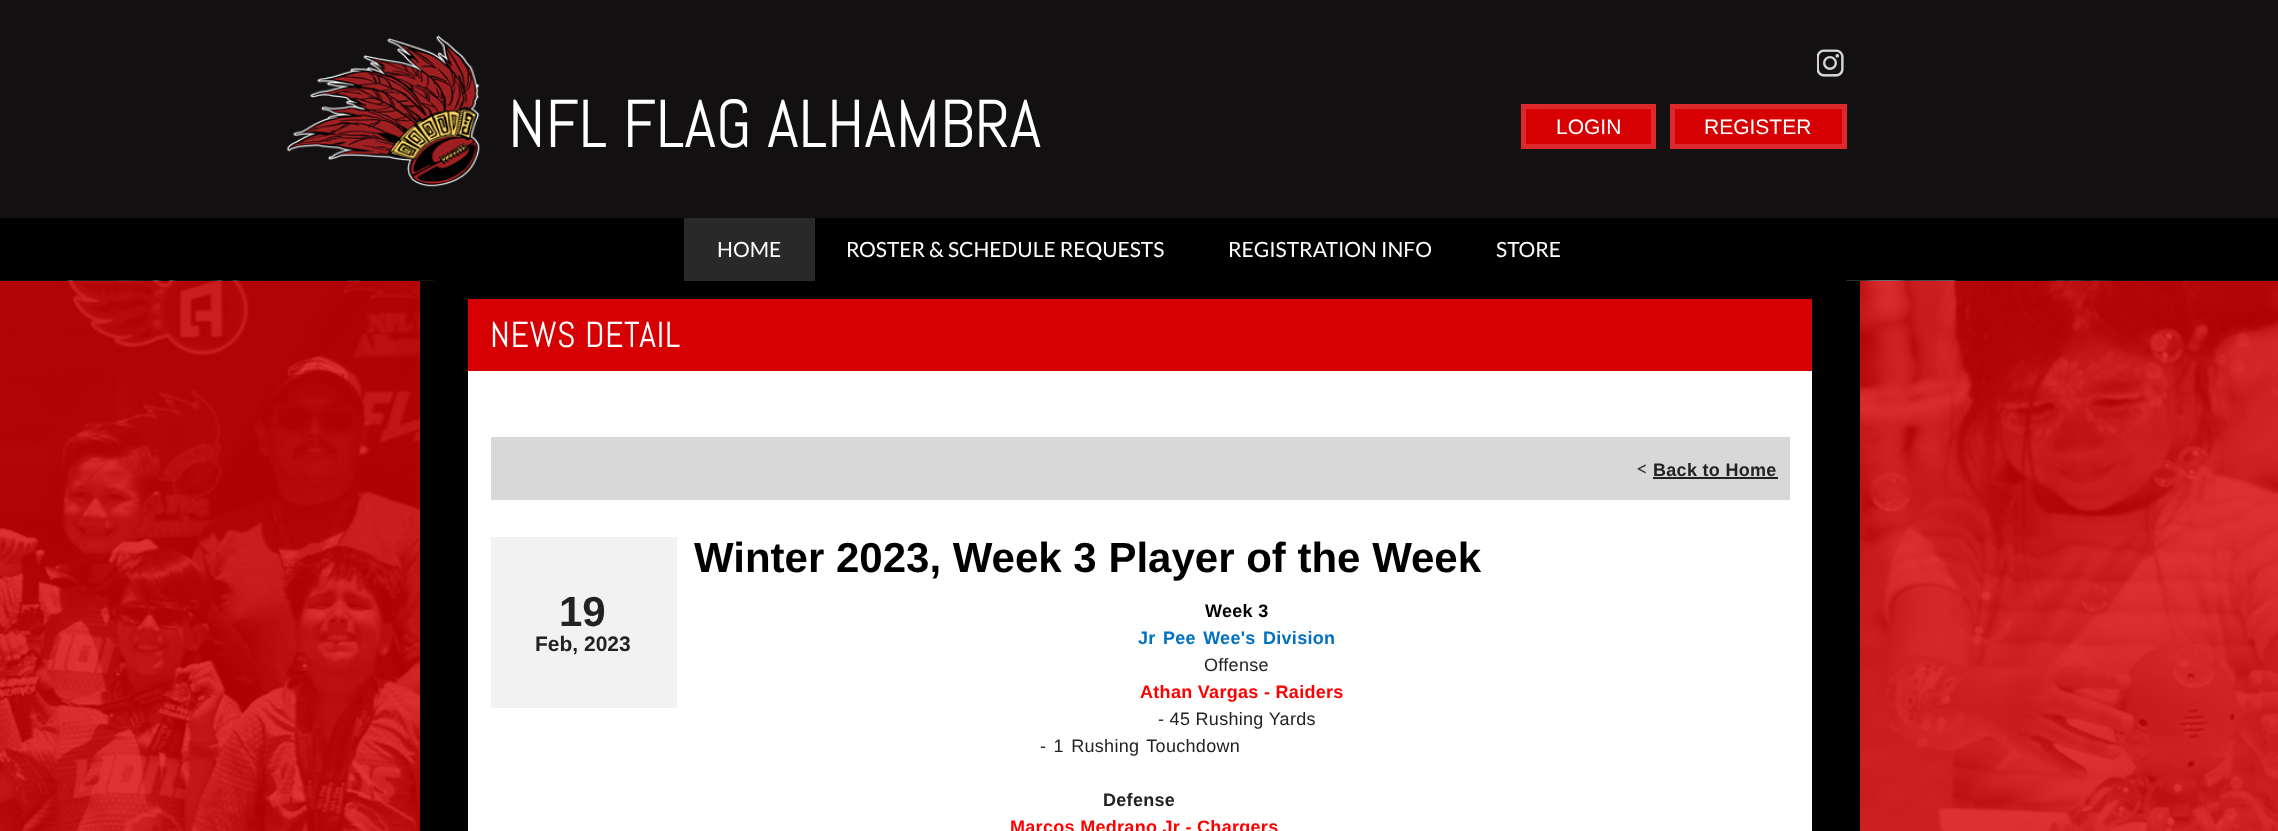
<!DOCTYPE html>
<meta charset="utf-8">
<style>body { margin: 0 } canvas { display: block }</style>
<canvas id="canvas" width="2278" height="831"></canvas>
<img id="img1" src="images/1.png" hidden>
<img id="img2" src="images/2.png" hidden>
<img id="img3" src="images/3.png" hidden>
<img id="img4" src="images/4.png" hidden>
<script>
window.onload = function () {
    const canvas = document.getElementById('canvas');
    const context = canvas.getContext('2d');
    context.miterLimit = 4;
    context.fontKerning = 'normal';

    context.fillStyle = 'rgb(18, 16, 17)';
    context.fillRect(0, 0, 2278, 831);
    context.drawImage(document.getElementById('img1'), 286, 36, 195, 151);
    context.drawImage(document.getElementById('img2'), 1817, 49, 27, 28);
    context.fillStyle = 'rgb(214, 0, 2)';
    context.beginPath();
    context.rect(1523.5, 106.5, 130, 40);
    context.fill();
    context.strokeStyle = 'rgb(221, 41, 43)';
    context.lineWidth = 5;
    context.stroke();
    context.beginPath();
    context.rect(1672.5, 106.5, 172, 40);
    context.fill();
    context.stroke();
    context.fillStyle = 'rgb(0, 0, 0)';
    context.fillRect(0, 218, 2278, 63);
    context.fillStyle = 'rgb(41, 41, 41)';
    context.fillRect(684, 218, 131, 63);
    context.drawImage(document.getElementById('img3'), 0, 280, 434, 551);
    context.drawImage(document.getElementById('img4'), 1846, 280, 432, 551);
    context.fillStyle = 'rgb(0, 0, 0)';
    context.fillRect(420, 281, 1440, 550);
    context.fillStyle = 'rgb(214, 0, 2)';
    context.fillRect(468, 299, 1344, 72);
    context.fillStyle = 'rgb(255, 255, 255)';
    context.fillRect(468, 371, 1344, 460);
    context.fillStyle = 'rgb(216, 216, 216)';
    context.fillRect(491, 437, 1299, 63);
    context.fillStyle = 'rgb(34, 34, 34)';
    context.fillRect(1653, 477, 125, 2);
    context.fillStyle = 'rgb(242, 242, 242)';
    context.fillRect(491, 537, 186, 171);
    context.font = '67.5px Abel';
    context.fillStyle = 'rgb(255, 255, 255)';
    context.fillText('NFL FLAG ALHAMBRA', 508, 147);
    context.font = '21px Liberation Sans';
    context.fillText('LOGIN', 1556, 134);
    context.fillText('REGISTER', 1704, 134);
    context.font = '21px Lato';
    context.fillText('HOME', 717, 257);
    context.fillText('ROSTER & SCHEDULE REQUESTS', 846, 257);
    context.fillText('REGISTRATION INFO', 1228, 257);
    context.fillText('STORE', 1496, 257);
    context.letterSpacing = '0.5px';
    context.font = '36px Abel';
    context.fillText('NEWS DETAIL', 490, 347);
    context.letterSpacing = '0.3px';
    context.font = '21px Lato';
    context.fillStyle = 'rgb(54, 54, 54)';
    context.fillText('<', 1636, 476);
    context.font = 'bold 18px Liberation Sans';
    context.fillStyle = 'rgb(34, 34, 34)';
    context.fillText('Back to Home', 1653, 476);
    context.letterSpacing = '0px';
    context.font = 'bold 42px Liberation Sans';
    context.fillStyle = 'rgb(0, 0, 0)';
    context.fillText('Winter 2023, Week 3 Player of the Week', 694, 572);
    context.fillStyle = 'rgb(34, 34, 34)';
    context.fillText('19', 559, 626);
    context.font = 'bold 21px Liberation Sans';
    context.fillText('Feb, 2023', 535, 651);
    context.letterSpacing = '0.3px';
    context.font = 'bold 18px Liberation Sans';
    context.fillStyle = 'rgb(0, 0, 0)';
    context.fillText('Week 3', 1205, 617);
    context.wordSpacing = '2px';
    context.fillStyle = 'rgb(0, 112, 192)';
    context.fillText('Jr Pee Wee\'s Division', 1138, 644);
    context.wordSpacing = '0px';
    context.font = '18px Liberation Sans';
    context.fillStyle = 'rgb(34, 34, 34)';
    context.fillText('Offense', 1204, 671);
    context.font = 'bold 18px Liberation Sans';
    context.fillStyle = 'rgb(255, 0, 0)';
    context.fillText('Athan Vargas - Raiders', 1140, 698);
    context.font = '18px Liberation Sans';
    context.fillStyle = 'rgb(34, 34, 34)';
    context.fillText('- 45 Rushing Yards', 1158, 725);
    context.wordSpacing = '2px';
    context.fillText('- 1 Rushing Touchdown', 1040, 752);
    context.wordSpacing = '0px';
    context.font = 'bold 18px Liberation Sans';
    context.fillText('Defense', 1103, 806);
    context.fillStyle = 'rgb(255, 0, 0)';
    context.fillText('Marcos Medrano Jr - Chargers', 1010, 833);
};
</script>
